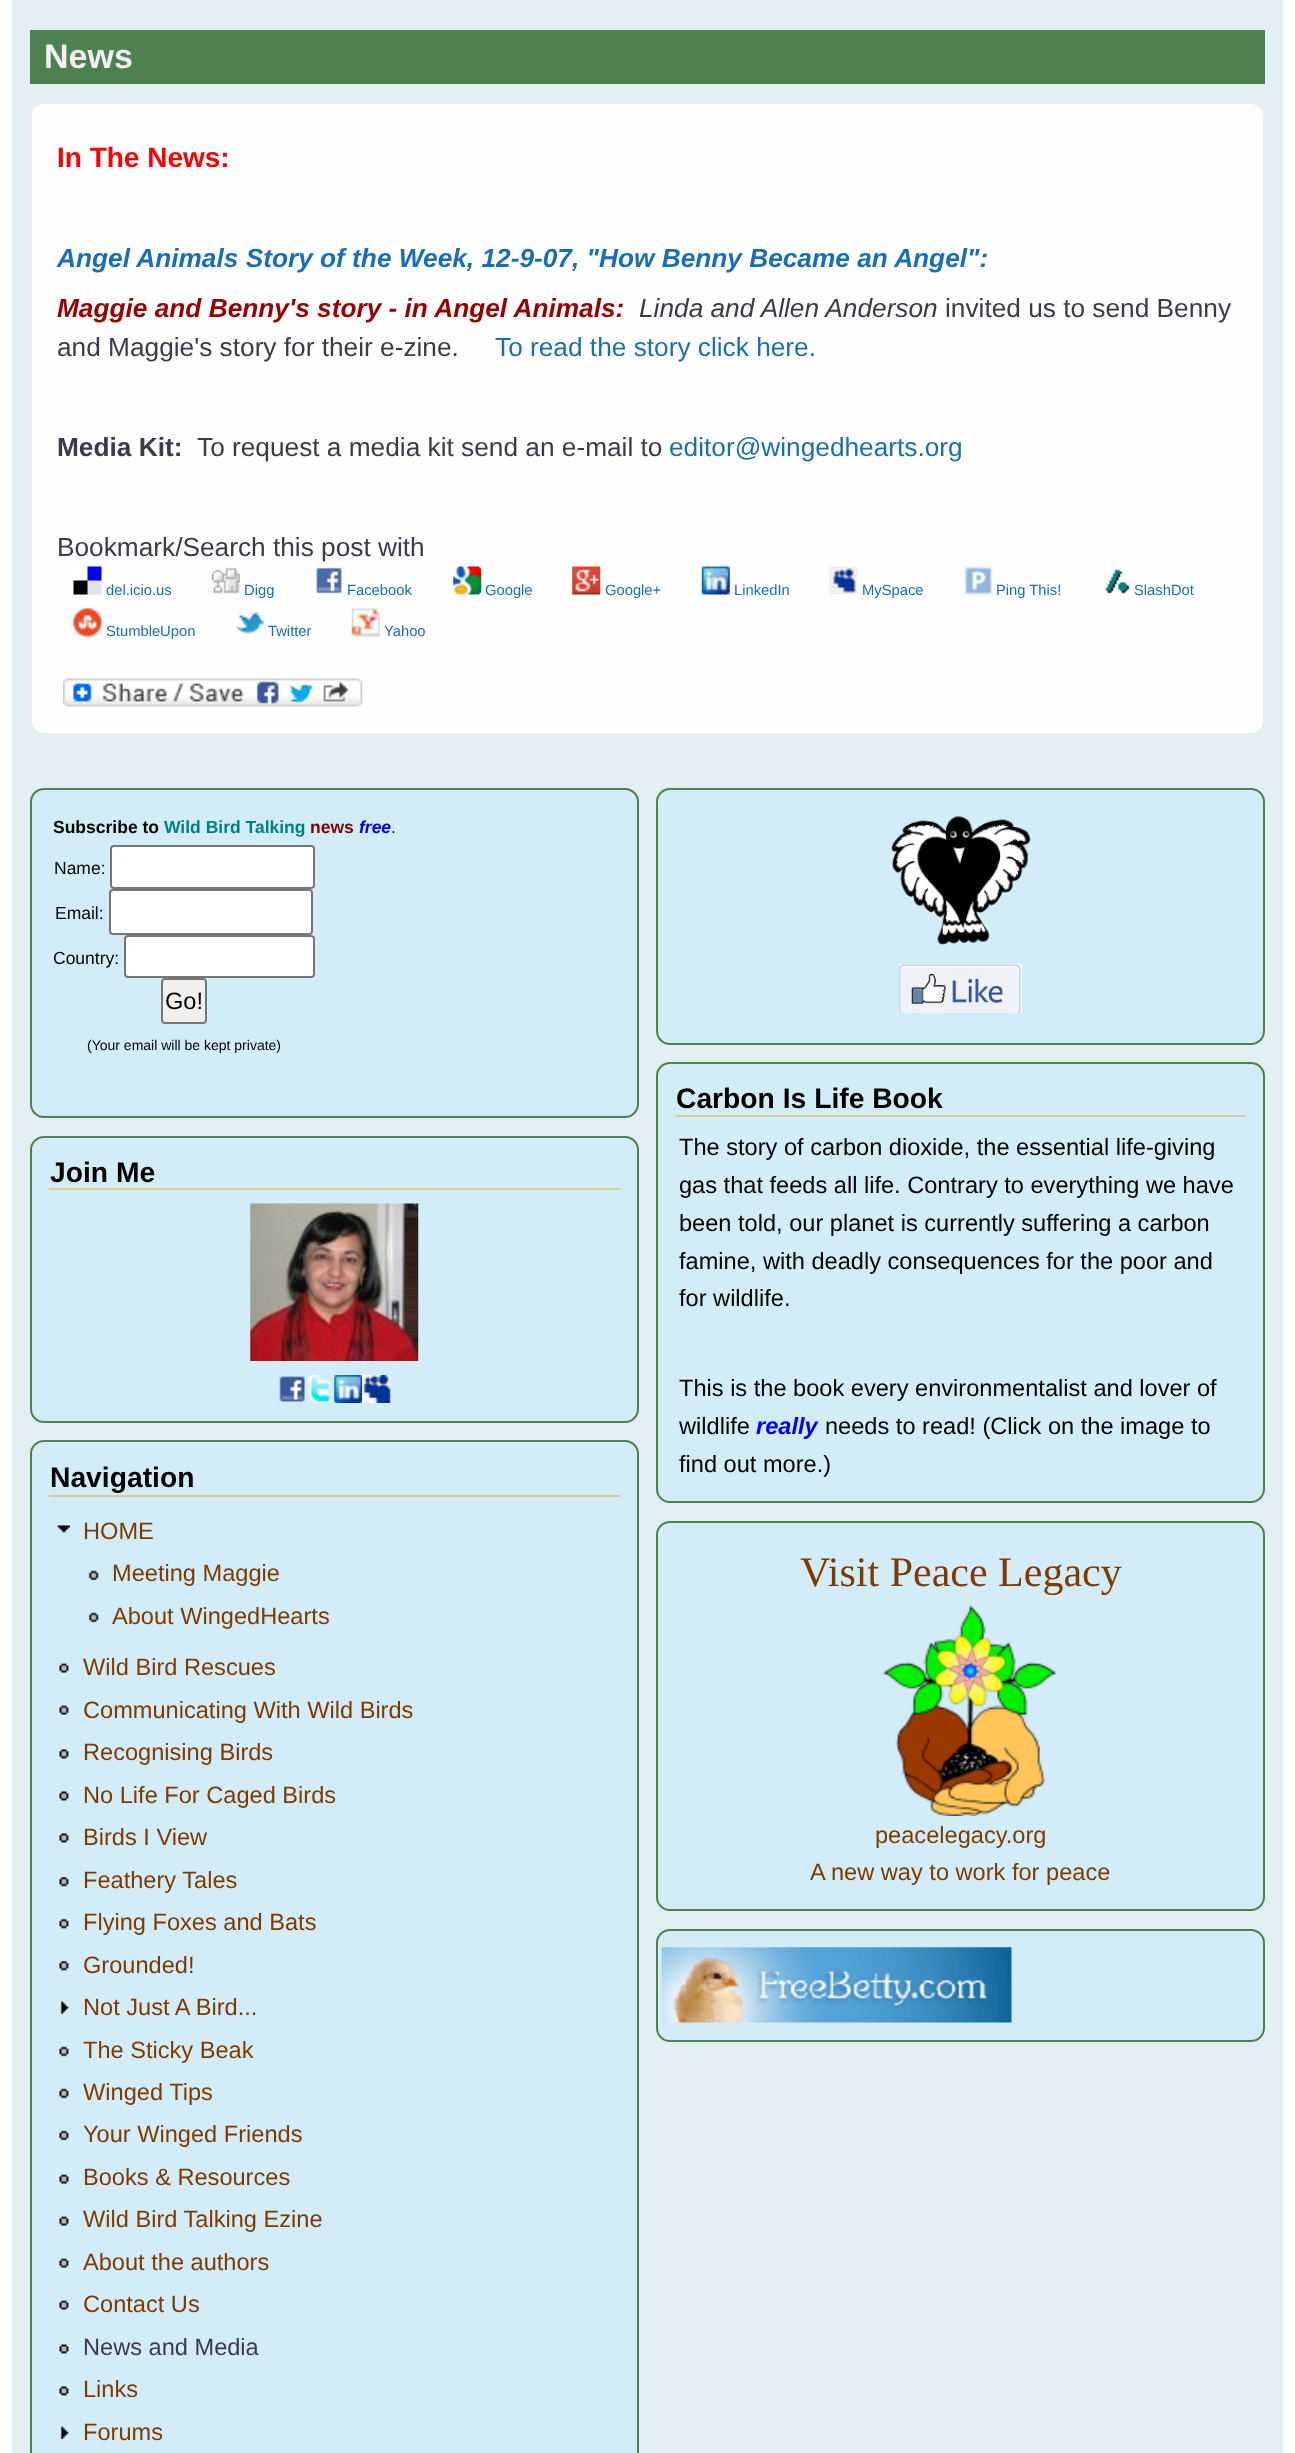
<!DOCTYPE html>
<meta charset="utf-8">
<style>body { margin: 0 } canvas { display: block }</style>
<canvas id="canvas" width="1295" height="2453"></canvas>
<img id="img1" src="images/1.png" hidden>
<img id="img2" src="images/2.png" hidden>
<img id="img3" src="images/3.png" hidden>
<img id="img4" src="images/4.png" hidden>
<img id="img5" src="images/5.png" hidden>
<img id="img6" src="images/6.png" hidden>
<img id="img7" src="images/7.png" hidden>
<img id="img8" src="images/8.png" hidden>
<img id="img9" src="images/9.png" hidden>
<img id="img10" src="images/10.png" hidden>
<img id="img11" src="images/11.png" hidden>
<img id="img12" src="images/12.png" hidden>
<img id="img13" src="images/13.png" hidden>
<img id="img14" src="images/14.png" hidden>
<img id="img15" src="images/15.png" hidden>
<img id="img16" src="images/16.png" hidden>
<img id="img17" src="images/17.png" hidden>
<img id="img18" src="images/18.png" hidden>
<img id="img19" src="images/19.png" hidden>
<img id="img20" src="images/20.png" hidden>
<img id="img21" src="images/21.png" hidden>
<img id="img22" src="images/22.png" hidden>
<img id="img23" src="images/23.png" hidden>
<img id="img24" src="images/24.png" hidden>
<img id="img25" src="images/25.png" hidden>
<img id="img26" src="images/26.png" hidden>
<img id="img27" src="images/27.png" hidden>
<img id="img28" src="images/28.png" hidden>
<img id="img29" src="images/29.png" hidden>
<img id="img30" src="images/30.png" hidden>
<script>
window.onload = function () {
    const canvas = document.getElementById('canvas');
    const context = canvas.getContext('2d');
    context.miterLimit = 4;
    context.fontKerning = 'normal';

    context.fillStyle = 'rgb(255, 255, 255)';
    context.fillRect(0, 0, 1295, 2453);
    context.fillStyle = 'rgb(226, 240, 244)';
    context.fillRect(12, 0, 1271, 2453);
    context.fillStyle = 'rgb(78, 128, 80)';
    context.fillRect(30, 30, 1235, 54);
    context.fillStyle = 'rgb(254, 254, 254)';
    context.beginPath();
    context.roundRect(31, 103, 1233, 631, 13);
    context.fill();
    context.strokeStyle = 'rgb(236, 236, 236)';
    context.lineWidth = 2;
    context.stroke();
    context.drawImage(document.getElementById('img1'), 73, 566, 29, 29);
    context.drawImage(document.getElementById('img2'), 211, 567, 29, 27);
    context.drawImage(document.getElementById('img3'), 316, 567, 26, 27);
    context.drawImage(document.getElementById('img4'), 453, 566, 29, 29);
    context.drawImage(document.getElementById('img5'), 572, 566, 29, 29);
    context.drawImage(document.getElementById('img6'), 701, 566, 29, 29);
    context.drawImage(document.getElementById('img7'), 829, 566, 29, 29);
    context.drawImage(document.getElementById('img8'), 964, 566, 29, 29);
    context.drawImage(document.getElementById('img9'), 1105, 569, 25, 25);
    context.drawImage(document.getElementById('img10'), 73, 608, 29, 29);
    context.drawImage(document.getElementById('img11'), 236, 611, 29, 23);
    context.drawImage(document.getElementById('img12'), 351, 608, 29, 29);
    context.drawImage(document.getElementById('img13'), 63, 678, 300, 29);
    context.fillStyle = 'rgb(211, 237, 248)';
    context.beginPath();
    context.roundRect(31, 789, 607, 328, 13);
    context.fill();
    context.strokeStyle = 'rgb(78, 128, 80)';
    context.stroke();
    context.fillStyle = 'rgb(255, 255, 255)';
    context.beginPath();
    context.roundRect(111, 846, 203, 42, 3);
    context.fill();
    context.strokeStyle = 'rgb(118, 118, 118)';
    context.stroke();
    context.beginPath();
    context.roundRect(110, 890, 202, 44, 3);
    context.fill();
    context.stroke();
    context.beginPath();
    context.roundRect(125, 936, 189, 41, 3);
    context.fill();
    context.stroke();
    context.fillStyle = 'rgb(239, 239, 239)';
    context.beginPath();
    context.roundRect(162, 979, 44, 44, 3);
    context.fill();
    context.stroke();
    context.fillStyle = 'rgb(211, 237, 248)';
    context.beginPath();
    context.roundRect(31, 1137, 607, 285, 13);
    context.fill();
    context.strokeStyle = 'rgb(78, 128, 80)';
    context.stroke();
    context.fillStyle = 'rgb(220, 207, 147)';
    context.fillRect(49, 1188, 571, 2);
    context.drawImage(document.getElementById('img14'), 250, 1203, 169, 158);
    context.drawImage(document.getElementById('img15'), 279, 1376, 26, 26);
    context.drawImage(document.getElementById('img16'), 307, 1375, 25, 28);
    context.drawImage(document.getElementById('img17'), 334, 1375, 29, 28);
    context.drawImage(document.getElementById('img18'), 362, 1375, 29, 28);
    context.fillStyle = 'rgb(211, 237, 248)';
    context.beginPath();
    context.roundRect(31, 1441, 607, 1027, 13);
    context.fill();
    context.stroke();
    context.fillStyle = 'rgb(220, 207, 147)';
    context.fillRect(49, 1495, 571, 2);
    context.drawImage(document.getElementById('img19'), 57, 1525, 13, 8);
    context.drawImage(document.getElementById('img20'), 88, 1570, 11, 11);
    context.drawImage(document.getElementById('img20'), 88, 1612, 11, 11);
    context.drawImage(document.getElementById('img21'), 59, 1663, 10, 10);
    context.drawImage(document.getElementById('img21'), 59, 1705, 10, 10);
    context.drawImage(document.getElementById('img22'), 59, 1749, 10, 10);
    context.drawImage(document.getElementById('img22'), 59, 1791, 10, 10);
    context.drawImage(document.getElementById('img22'), 59, 1833, 10, 10);
    context.drawImage(document.getElementById('img23'), 59, 1876, 10, 11);
    context.drawImage(document.getElementById('img23'), 59, 1918, 10, 11);
    context.drawImage(document.getElementById('img23'), 59, 1960, 10, 11);
    context.drawImage(document.getElementById('img24'), 60, 2001, 9, 13);
    context.drawImage(document.getElementById('img25'), 59, 2046, 10, 11);
    context.drawImage(document.getElementById('img25'), 59, 2088, 10, 11);
    context.drawImage(document.getElementById('img25'), 59, 2130, 10, 11);
    context.drawImage(document.getElementById('img21'), 59, 2174, 10, 10);
    context.drawImage(document.getElementById('img21'), 59, 2216, 10, 10);
    context.drawImage(document.getElementById('img21'), 59, 2258, 10, 10);
    context.drawImage(document.getElementById('img21'), 59, 2300, 10, 10);
    context.drawImage(document.getElementById('img22'), 59, 2344, 10, 10);
    context.drawImage(document.getElementById('img22'), 59, 2386, 10, 10);
    context.drawImage(document.getElementById('img26'), 60, 2426, 9, 13);
    context.fillStyle = 'rgb(211, 237, 248)';
    context.beginPath();
    context.roundRect(657, 789, 607, 255, 13);
    context.fill();
    context.stroke();
    context.drawImage(document.getElementById('img27'), 891, 816, 140, 129);
    context.drawImage(document.getElementById('img28'), 899, 963, 123, 50);
    context.beginPath();
    context.roundRect(657, 1063, 607, 439, 13);
    context.fill();
    context.stroke();
    context.fillStyle = 'rgb(220, 207, 147)';
    context.fillRect(676, 1115, 570, 2);
    context.fillStyle = 'rgb(211, 237, 248)';
    context.beginPath();
    context.roundRect(657, 1522, 607, 388, 13);
    context.fill();
    context.stroke();
    context.drawImage(document.getElementById('img29'), 883, 1606, 173, 210);
    context.beginPath();
    context.roundRect(657, 1930, 607, 111, 13);
    context.fill();
    context.stroke();
    context.drawImage(document.getElementById('img30'), 661, 1947, 351, 76);
    context.font = 'bold 34px Liberation Sans';
    context.fillStyle = 'rgb(241, 241, 241)';
    context.fillText('News', 44, 68);
    context.font = 'bold 28px Liberation Sans';
    context.fillStyle = 'rgb(255, 0, 0)';
    context.fillText('In The News:', 57, 167);
    context.font = 'italic bold 26.25px Liberation Sans';
    context.fillStyle = 'rgb(24, 110, 184)';
    context.fillText('Angel Animals Story of the Week, 12-9-07, "How Benny Became an Angel":', 57, 267);
    context.fillStyle = 'rgb(153, 0, 0)';
    context.fillText('Maggie and Benny\'s story - in Angel Animals:', 57, 317);
    context.font = 'italic 26.25px Liberation Sans';
    context.fillStyle = 'rgb(58, 58, 73)';
    context.fillText('Linda and Allen Anderson', 639, 317);
    context.font = '26.25px Liberation Sans';
    context.fillText('invited us to send Benny', 945, 317);
    context.fillText('and Maggie\'s story for their e-zine.', 57, 356);
    context.fillStyle = 'rgb(24, 110, 184)';
    context.fillText('To read the story click here.', 495, 356);
    context.font = 'bold 26.25px Liberation Sans';
    context.fillStyle = 'rgb(58, 58, 73)';
    context.fillText('Media Kit:', 57, 456);
    context.font = '26.25px Liberation Sans';
    context.fillText('To request a media kit send an e-mail to', 197, 456);
    context.fillStyle = 'rgb(24, 110, 184)';
    context.fillText('editor@wingedhearts.org', 669, 456);
    context.fillStyle = 'rgb(58, 58, 73)';
    context.fillText('Bookmark/Search this post with', 57, 556);
    context.font = '14.75px Liberation Sans';
    context.fillStyle = 'rgb(24, 110, 184)';
    context.fillText('del.icio.us', 106, 595);
    context.fillText('Digg', 244, 595);
    context.fillText('Facebook', 347, 595);
    context.fillText('Google', 485, 595);
    context.fillText('Google+', 605, 595);
    context.fillText('LinkedIn', 734, 595);
    context.fillText('MySpace', 862, 595);
    context.fillText('Ping This!', 996, 595);
    context.fillText('SlashDot', 1134, 595);
    context.fillText('StumbleUpon', 106, 636);
    context.fillText('Twitter', 268, 636);
    context.fillText('Yahoo', 384, 636);
    context.font = 'bold 17.5px Liberation Sans';
    context.fillStyle = 'rgb(0, 0, 0)';
    context.fillText('Subscribe to', 53, 833);
    context.fillStyle = 'rgb(0, 128, 128)';
    context.fillText('Wild Bird Talking', 164, 833);
    context.fillStyle = 'rgb(128, 0, 0)';
    context.fillText('news', 310, 833);
    context.font = 'italic bold 17.5px Liberation Sans';
    context.fillStyle = 'rgb(0, 0, 255)';
    context.fillText('free', 359, 833);
    context.font = '17.5px Liberation Sans';
    context.fillStyle = 'rgb(0, 0, 0)';
    context.fillText('.', 391, 833);
    context.fillText('Name:', 54, 874);
    context.fillText('Email:', 55, 919);
    context.fillText('Country:', 53, 964);
    context.font = '23.6px Liberation Sans';
    context.fillText('Go!', 165, 1009);
    context.font = '14px Liberation Sans';
    context.fillText('(Your email will be kept private)', 87, 1050);
    context.font = 'bold 28.25px Liberation Sans';
    context.fillText('Join Me', 50, 1182);
    context.fillText('Navigation', 50, 1487);
    context.font = '23.6px Liberation Sans';
    context.fillStyle = 'rgb(127, 58, 0)';
    context.fillText('HOME', 83, 1539);
    context.fillText('Meeting Maggie', 112, 1581);
    context.fillText('About WingedHearts', 112, 1624);
    context.fillText('Wild Bird Rescues', 83, 1675);
    context.fillText('Communicating With Wild Birds', 83, 1718);
    context.fillText('Recognising Birds', 83, 1760);
    context.fillText('No Life For Caged Birds', 83, 1803);
    context.fillText('Birds I View', 83, 1845);
    context.fillText('Feathery Tales', 83, 1888);
    context.fillText('Flying Foxes and Bats', 83, 1930);
    context.fillText('Grounded!', 83, 1973);
    context.fillText('Not Just A Bird...', 83, 2015);
    context.fillText('The Sticky Beak', 83, 2058);
    context.fillText('Winged Tips', 83, 2100);
    context.fillText('Your Winged Friends', 83, 2142);
    context.fillText('Books & Resources', 83, 2185);
    context.fillText('Wild Bird Talking Ezine', 83, 2227);
    context.fillText('About the authors', 83, 2270);
    context.fillText('Contact Us', 83, 2312);
    context.fillStyle = 'rgb(58, 58, 73)';
    context.fillText('News and Media', 83, 2355);
    context.fillStyle = 'rgb(127, 58, 0)';
    context.fillText('Links', 83, 2397);
    context.fillText('Forums', 83, 2440);
    context.font = 'bold 28.25px Liberation Sans';
    context.fillStyle = 'rgb(0, 0, 0)';
    context.fillText('Carbon Is Life Book', 676, 1108);
    context.font = '23.6px Liberation Sans';
    context.fillText('The story of carbon dioxide, the essential life-giving', 679, 1155);
    context.fillText('gas that feeds all life. Contrary to everything we have', 679, 1193);
    context.fillText('been told, our planet is currently suffering a carbon', 679, 1231);
    context.fillText('famine, with deadly consequences for the poor and', 679, 1269);
    context.fillText('for wildlife.', 679, 1306);
    context.fillText('This is the book every environmentalist and lover of', 679, 1396);
    context.fillText('wildlife', 679, 1434);
    context.font = 'italic bold 23.6px Liberation Sans';
    context.fillStyle = 'rgb(0, 0, 255)';
    context.fillText('really', 756, 1434);
    context.font = '23.6px Liberation Sans';
    context.fillStyle = 'rgb(0, 0, 0)';
    context.fillText('needs to read! (Click on the image to', 825, 1434);
    context.fillText('find out more.)', 679, 1472);
    context.font = '42px Liberation Serif';
    context.fillStyle = 'rgb(127, 58, 0)';
    context.fillText('Visit Peace Legacy', 800, 1586);
    context.font = '23.6px Liberation Sans';
    context.fillText('peacelegacy.org', 875, 1843);
    context.fillText('A new way to work for peace', 810, 1880);
};
</script>
